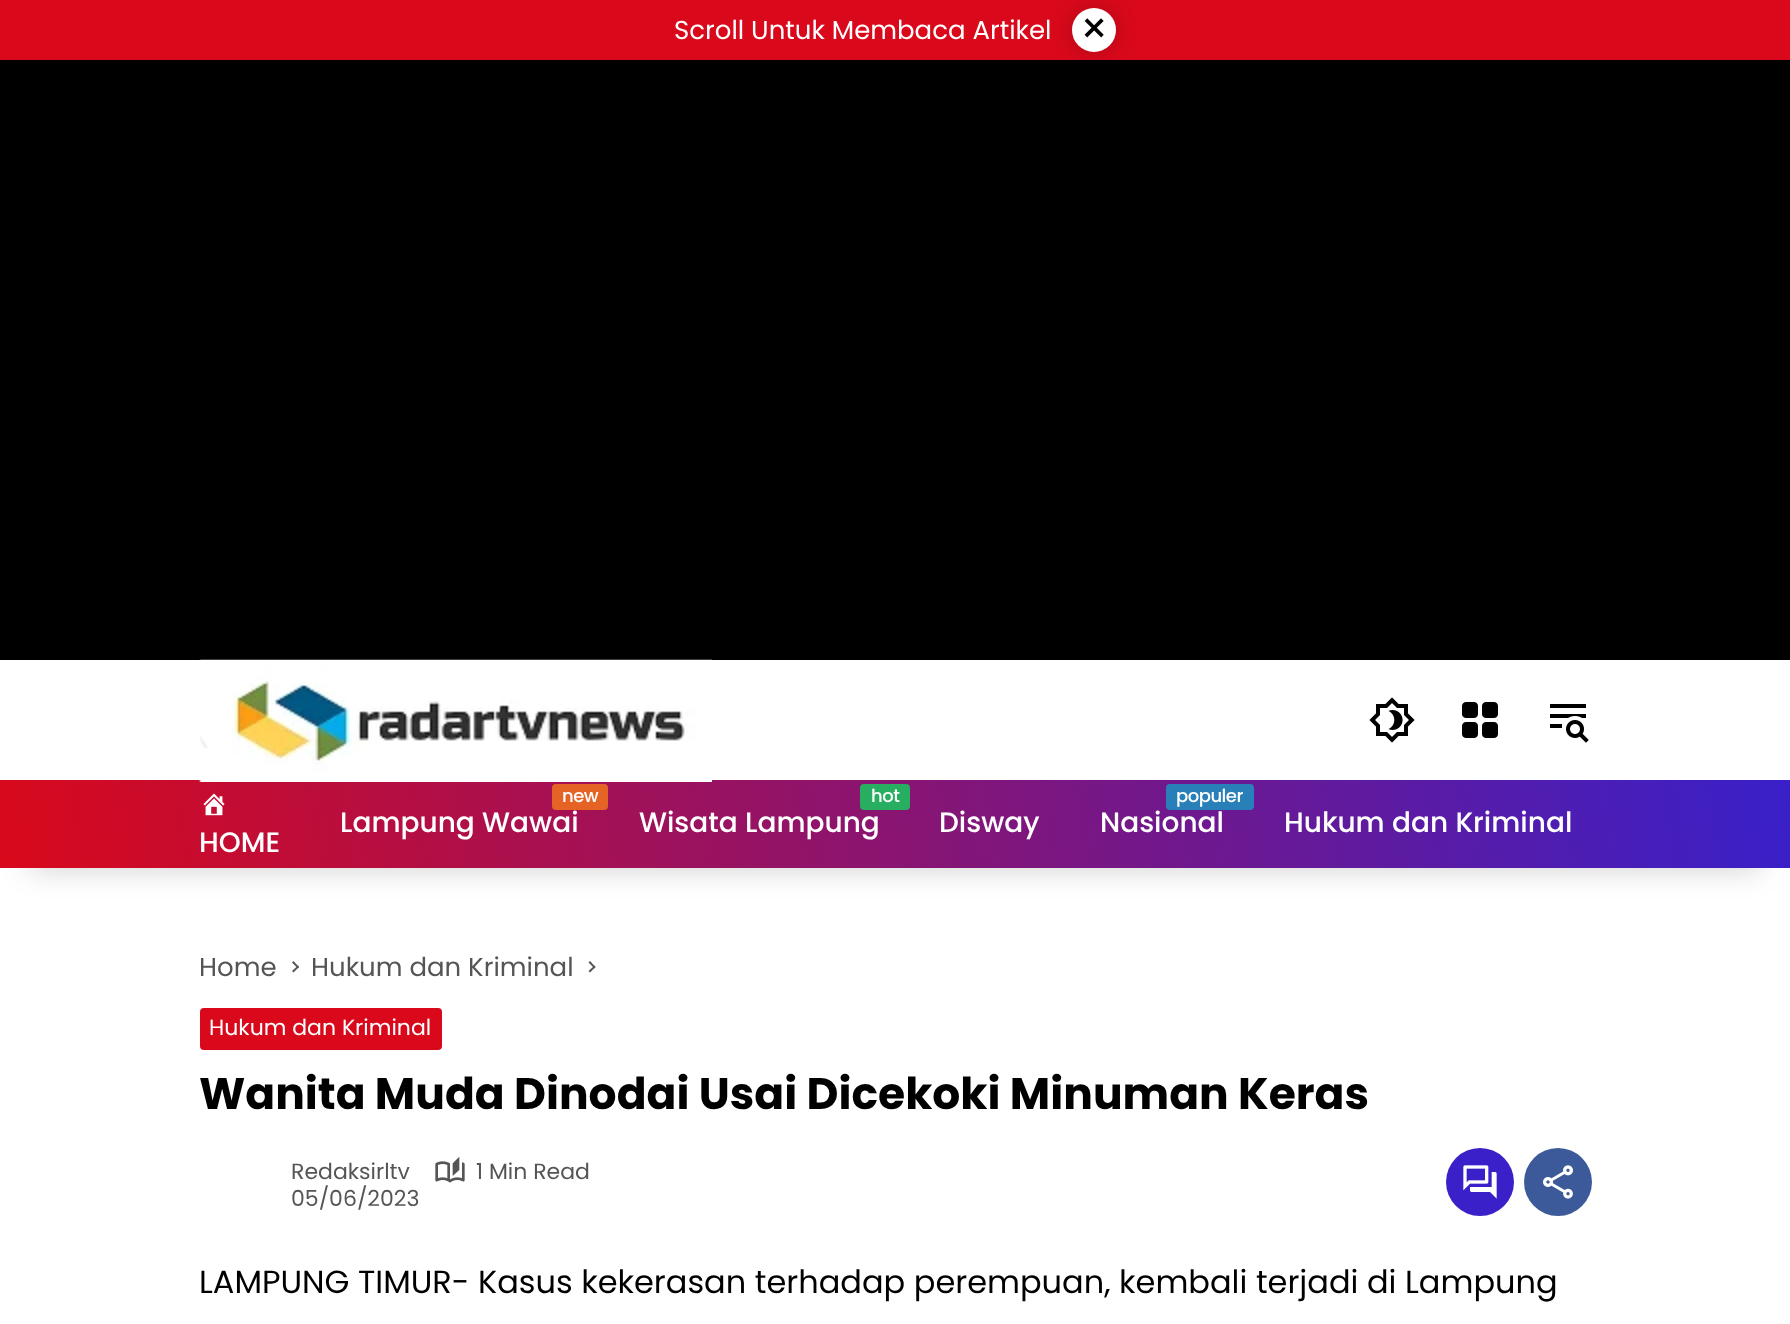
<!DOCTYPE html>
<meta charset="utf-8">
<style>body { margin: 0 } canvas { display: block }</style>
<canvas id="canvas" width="1790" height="1324"></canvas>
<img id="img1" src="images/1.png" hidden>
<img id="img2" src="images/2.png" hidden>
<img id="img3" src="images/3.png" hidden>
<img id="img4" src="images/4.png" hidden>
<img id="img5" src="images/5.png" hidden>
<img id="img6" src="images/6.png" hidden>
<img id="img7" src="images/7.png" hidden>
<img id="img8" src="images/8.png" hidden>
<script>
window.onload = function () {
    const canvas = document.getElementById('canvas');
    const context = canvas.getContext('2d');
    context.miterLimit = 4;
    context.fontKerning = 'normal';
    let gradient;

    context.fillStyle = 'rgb(0, 0, 0)';
    context.fillRect(0, 0, 1790, 1324);
    context.fillStyle = 'rgb(217, 9, 27)';
    context.fillRect(0, 0, 1790, 60);
    context.fillStyle = 'rgba(0, 0, 0, 0.2)';
    context.filter = 'blur(10px)';
    context.beginPath();
    context.roundRect(1072, 8, 44, 44, 22);
    context.fill();
    context.filter = 'none';
    context.fillStyle = 'rgb(255, 255, 255)';
    context.beginPath();
    context.arc(1094, 30, 22, 0, 2 * Math.PI);
    context.fill();
    context.fillRect(0, 660, 1790, 664);
    context.fillStyle = 'rgba(0, 0, 0, 0.2)';
    context.filter = 'blur(15px)';
    context.beginPath();
    context.rect(30, 840, 1730, 28);
    context.fill();
    context.filter = 'none';
    gradient = context.createLinearGradient(19, 978, 1771, 670);
    gradient.addColorStop(0, 'rgb(217, 9, 27)');
    gradient.addColorStop(1, 'rgb(57, 32, 201)');
    context.fillStyle = gradient;
    context.fillRect(0, 780, 1790, 88);
    context.drawImage(document.getElementById('img1'), 199, 659, 513, 123);
    context.drawImage(document.getElementById('img2'), 1369, 697, 46, 46);
    context.drawImage(document.getElementById('img3'), 1462, 702, 36, 36);
    context.drawImage(document.getElementById('img4'), 1550, 704, 39, 39);
    context.fillStyle = 'rgb(229, 99, 36)';
    context.beginPath();
    context.roundRect(552, 784, 56, 26, 4);
    context.fill();
    context.fillStyle = 'rgb(39, 174, 96)';
    context.beginPath();
    context.roundRect(860, 784, 50, 26, 4);
    context.fill();
    context.fillStyle = 'rgb(41, 128, 185)';
    context.beginPath();
    context.roundRect(1166, 784, 88, 26, 4);
    context.fill();
    context.drawImage(document.getElementById('img5'), 203, 793, 22, 23);
    context.fillStyle = 'rgb(85, 85, 85)';
    context.beginPath();
    context.moveTo(292, 962.5);
    context.lineTo(293.5, 961);
    context.lineTo(299, 967);
    context.lineTo(298, 968.5);
    context.closePath();
    context.fill();
    context.beginPath();
    context.moveTo(292, 971);
    context.lineTo(298, 965.5);
    context.lineTo(299, 967);
    context.lineTo(293.5, 972.5);
    context.closePath();
    context.fill();
    context.beginPath();
    context.moveTo(588.5, 962.5);
    context.lineTo(590, 961);
    context.lineTo(595.5, 967);
    context.lineTo(594.5, 968.5);
    context.closePath();
    context.fill();
    context.beginPath();
    context.moveTo(588.5, 971);
    context.lineTo(594.5, 965.5);
    context.lineTo(595.5, 967);
    context.lineTo(590, 972.5);
    context.closePath();
    context.fill();
    context.fillStyle = 'rgb(217, 9, 27)';
    context.beginPath();
    context.roundRect(200, 1008, 242, 42, 4);
    context.fill();
    context.drawImage(document.getElementById('img6'), 435, 1156, 30, 27);
    context.fillStyle = 'rgb(57, 32, 201)';
    context.beginPath();
    context.arc(1480, 1182, 34, 0, 2 * Math.PI);
    context.fill();
    context.drawImage(document.getElementById('img7'), 1463, 1165, 34, 34);
    context.fillStyle = 'rgb(60, 90, 153)';
    context.beginPath();
    context.arc(1558, 1182, 34, 0, 2 * Math.PI);
    context.fill();
    context.drawImage(document.getElementById('img8'), 1543, 1165, 30, 34);
    context.font = '26px Poppins';
    context.fillStyle = 'rgb(255, 255, 255)';
    context.fillText('Scroll Untuk Membaca Artikel', 674, 39);
    context.font = '44px Poppins';
    context.fillStyle = 'rgb(0, 0, 0)';
    context.fillText('×', 1080, 44);
    context.letterSpacing = '-0.5px';
    context.font = '500 18px Poppins';
    context.fillStyle = 'rgb(255, 255, 255)';
    context.fillText('new', 562, 802);
    context.letterSpacing = '0px';
    context.font = '500 28px Poppins';
    context.fillText('Lampung Wawai', 340, 832);
    context.letterSpacing = '-0.5px';
    context.font = '500 18px Poppins';
    context.fillText('hot', 871, 802);
    context.letterSpacing = '0px';
    context.font = '500 28px Poppins';
    context.fillText('Wisata Lampung', 639, 832);
    context.fillText('Disway', 939, 832);
    context.letterSpacing = '-0.5px';
    context.font = '500 18px Poppins';
    context.fillText('populer', 1176, 802);
    context.letterSpacing = '0px';
    context.font = '500 28px Poppins';
    context.fillText('Nasional', 1100, 832);
    context.fillText('Hukum dan Kriminal', 1284, 832);
    context.fillText('HOME', 199, 852);
    context.font = '26px Poppins';
    context.fillStyle = 'rgb(85, 85, 85)';
    context.fillText('Home', 199, 976);
    context.fillText('Hukum dan Kriminal', 311, 976);
    context.font = '22px Poppins';
    context.fillStyle = 'rgb(255, 255, 255)';
    context.fillText('Hukum dan Kriminal', 209, 1035);
    context.font = 'bold 44px Poppins';
    context.fillStyle = 'rgb(0, 0, 0)';
    context.fillText('Wanita Muda Dinodai Usai Dicekoki Minuman Keras', 199, 1109);
    context.font = '22px Poppins';
    context.fillStyle = 'rgb(85, 85, 85)';
    context.fillText('Redaksirltv', 291, 1179);
    context.fillText('1 Min Read', 476, 1179);
    context.fillText('05/06/2023', 291, 1206);
    context.font = '32px Poppins';
    context.fillStyle = 'rgb(0, 0, 0)';
    context.fillText('LAMPUNG TIMUR- Kasus kekerasan terhadap perempuan, kembali terjadi di Lampung', 199, 1293);
};
</script>
